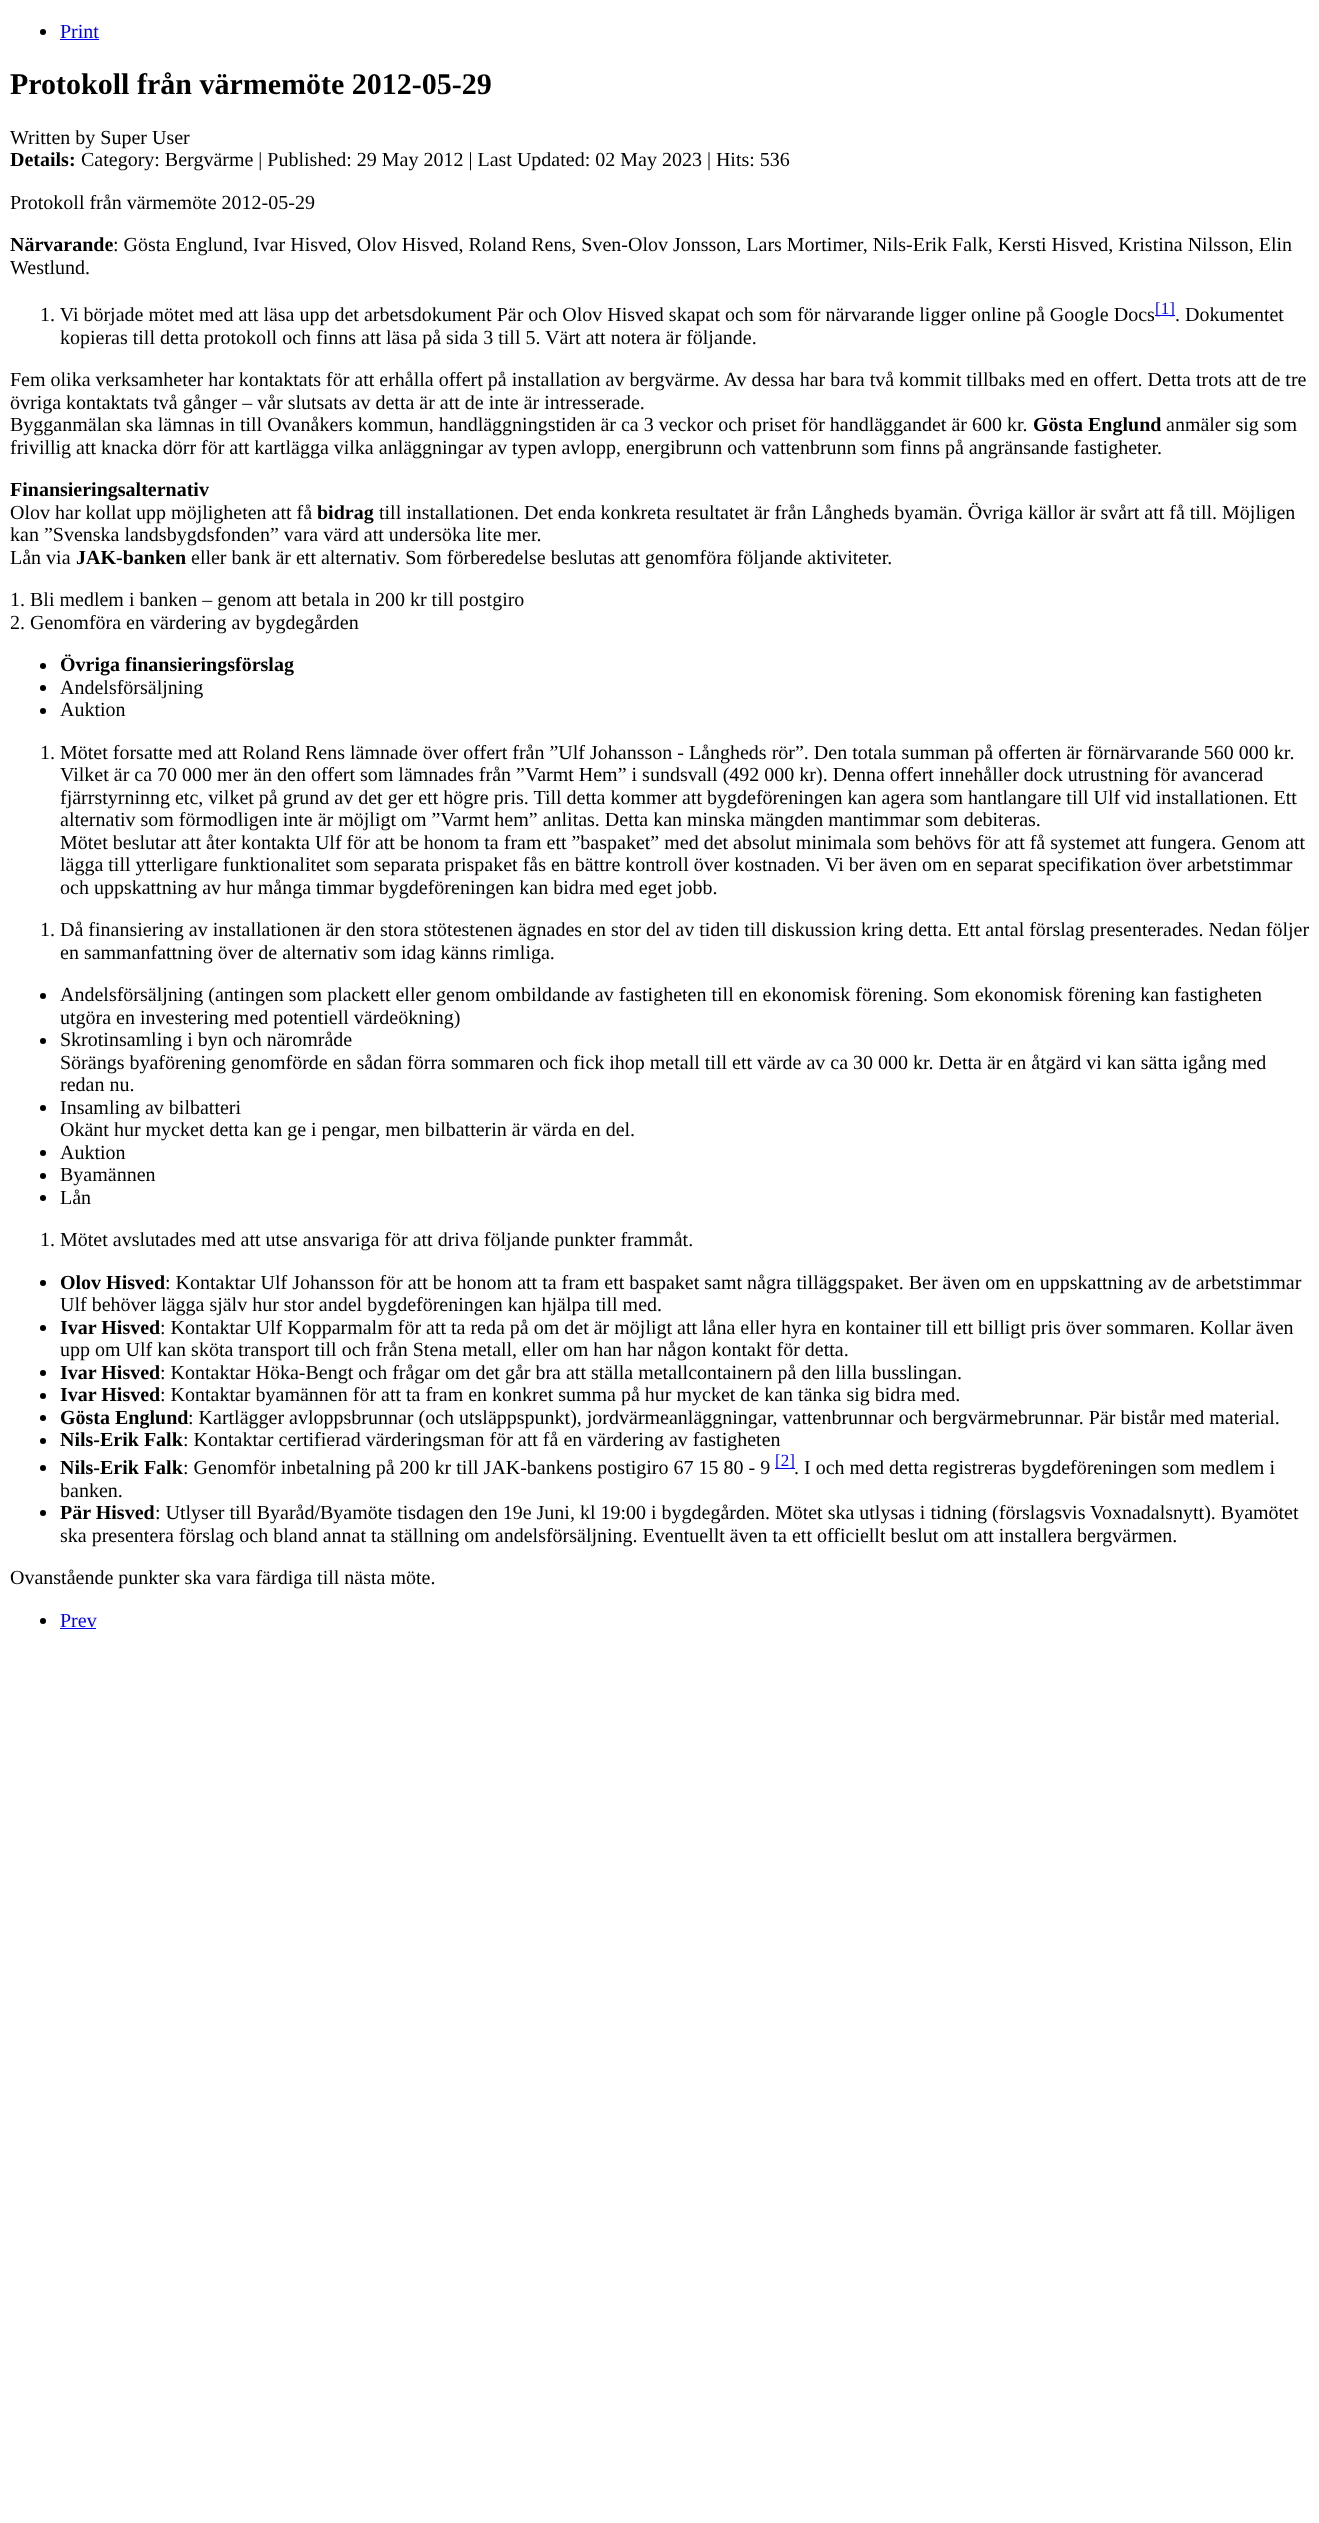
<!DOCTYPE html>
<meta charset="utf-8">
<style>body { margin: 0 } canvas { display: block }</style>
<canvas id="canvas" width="1319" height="2523"></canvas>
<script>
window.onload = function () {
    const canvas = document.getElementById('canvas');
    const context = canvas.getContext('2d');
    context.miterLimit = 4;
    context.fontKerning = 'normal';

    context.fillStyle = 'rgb(255, 255, 255)';
    context.fillRect(0, 0, 1319, 2523);
    context.fillStyle = 'rgb(0, 0, 0)';
    context.beginPath();
    context.arc(43, 32, 3, 0, 2 * Math.PI);
    context.fill();
    context.fillStyle = 'rgb(0, 0, 238)';
    context.fillRect(60, 39, 39, 1);
    context.fillRect(1155, 315, 20, 1);
    context.fillStyle = 'rgb(0, 0, 0)';
    context.beginPath();
    context.arc(43, 666, 3, 0, 2 * Math.PI);
    context.fill();
    context.beginPath();
    context.arc(43, 688, 3, 0, 2 * Math.PI);
    context.fill();
    context.beginPath();
    context.arc(43, 711, 3, 0, 2 * Math.PI);
    context.fill();
    context.beginPath();
    context.arc(43, 996, 3, 0, 2 * Math.PI);
    context.fill();
    context.beginPath();
    context.arc(43, 1041, 3, 0, 2 * Math.PI);
    context.fill();
    context.beginPath();
    context.arc(43, 1108, 3, 0, 2 * Math.PI);
    context.fill();
    context.beginPath();
    context.arc(43, 1153, 3, 0, 2 * Math.PI);
    context.fill();
    context.beginPath();
    context.arc(43, 1176, 3, 0, 2 * Math.PI);
    context.fill();
    context.beginPath();
    context.arc(43, 1198, 3, 0, 2 * Math.PI);
    context.fill();
    context.beginPath();
    context.arc(43, 1283, 3, 0, 2 * Math.PI);
    context.fill();
    context.beginPath();
    context.arc(43, 1328, 3, 0, 2 * Math.PI);
    context.fill();
    context.beginPath();
    context.arc(43, 1373, 3, 0, 2 * Math.PI);
    context.fill();
    context.beginPath();
    context.arc(43, 1396, 3, 0, 2 * Math.PI);
    context.fill();
    context.beginPath();
    context.arc(43, 1418, 3, 0, 2 * Math.PI);
    context.fill();
    context.beginPath();
    context.arc(43, 1441, 3, 0, 2 * Math.PI);
    context.fill();
    context.beginPath();
    context.arc(43, 1468, 3, 0, 2 * Math.PI);
    context.fill();
    context.fillStyle = 'rgb(0, 0, 238)';
    context.fillRect(775, 1468, 20, 1);
    context.fillStyle = 'rgb(0, 0, 0)';
    context.beginPath();
    context.arc(43, 1513, 3, 0, 2 * Math.PI);
    context.fill();
    context.beginPath();
    context.arc(43, 1621, 3, 0, 2 * Math.PI);
    context.fill();
    context.fillStyle = 'rgb(0, 0, 238)';
    context.fillRect(60, 1628, 36, 1);
    context.font = '20px Liberation Serif';
    context.fillText('Print', 60, 38);
    context.font = 'bold 30px Liberation Serif';
    context.fillStyle = 'rgb(0, 0, 0)';
    context.fillText('Protokoll från värmemöte 2012-05-29', 10, 94);
    context.font = '20px Liberation Serif';
    context.fillText('Written by Super User', 10, 144);
    context.font = 'bold 20px Liberation Serif';
    context.fillText('Details:', 10, 166);
    context.font = '20px Liberation Serif';
    context.fillText('Category: Bergvärme | Published: 29 May 2012 | Last Updated: 02 May 2023 | Hits: 536', 81, 166);
    context.fillText('Protokoll från värmemöte 2012-05-29', 10, 209);
    context.font = 'bold 20px Liberation Serif';
    context.fillText('Närvarande', 10, 251);
    context.font = '20px Liberation Serif';
    context.fillText(': Gösta Englund, Ivar Hisved, Olov Hisved, Roland Rens, Sven-Olov Jonsson, Lars Mortimer, Nils-Erik Falk, Kersti Hisved, Kristina Nilsson, Elin', 113, 251);
    context.fillText('Westlund.', 10, 274);
    context.fillText('1. Vi började mötet med att läsa upp det arbetsdokument Pär och Olov Hisved skapat och som för närvarande ligger online på Google Docs', 40, 321);
    context.font = '17px Liberation Serif';
    context.fillStyle = 'rgb(0, 0, 238)';
    context.fillText('[1]', 1155, 314);
    context.font = '20px Liberation Serif';
    context.fillStyle = 'rgb(0, 0, 0)';
    context.fillText('. Dokumentet', 1175, 321);
    context.fillText('kopieras till detta protokoll och finns att läsa på sida 3 till 5. Värt att notera är följande.', 60, 344);
    context.fillText('Fem olika verksamheter har kontaktats för att erhålla offert på installation av bergvärme. Av dessa har bara två kommit tillbaks med en offert. Detta trots att de tre', 10, 386);
    context.fillText('övriga kontaktats två gånger – vår slutsats av detta är att de inte är intresserade.', 10, 409);
    context.fillText('Bygganmälan ska lämnas in till Ovanåkers kommun, handläggningstiden är ca 3 veckor och priset för handläggandet är 600 kr.', 10, 431);
    context.font = 'bold 20px Liberation Serif';
    context.fillText('Gösta Englund', 1033, 431);
    context.font = '20px Liberation Serif';
    context.fillText('anmäler sig som', 1166, 431);
    context.fillText('frivillig att knacka dörr för att kartlägga vilka anläggningar av typen avlopp, energibrunn och vattenbrunn som finns på angränsande fastigheter.', 10, 454);
    context.font = 'bold 20px Liberation Serif';
    context.fillText('Finansieringsalternativ', 10, 496);
    context.font = '20px Liberation Serif';
    context.fillText('Olov har kollat upp möjligheten att få', 10, 519);
    context.font = 'bold 20px Liberation Serif';
    context.fillText('bidrag', 317, 519);
    context.font = '20px Liberation Serif';
    context.fillText('till installationen. Det enda konkreta resultatet är från Långheds byamän. Övriga källor är svårt att få till. Möjligen', 379, 519);
    context.fillText('kan ”Svenska landsbygdsfonden” vara värd att undersöka lite mer.', 10, 541);
    context.fillText('Lån via', 10, 564);
    context.font = 'bold 20px Liberation Serif';
    context.fillText('JAK-banken', 76, 564);
    context.font = '20px Liberation Serif';
    context.fillText('eller bank är ett alternativ. Som förberedelse beslutas att genomföra följande aktiviteter.', 191, 564);
    context.fillText('1. Bli medlem i banken – genom att betala in 200 kr till postgiro', 10, 606);
    context.fillText('2. Genomföra en värdering av bygdegården', 10, 629);
    context.font = 'bold 20px Liberation Serif';
    context.fillText('Övriga finansieringsförslag', 60, 671);
    context.font = '20px Liberation Serif';
    context.fillText('Andelsförsäljning', 60, 694);
    context.fillText('Auktion', 60, 716);
    context.fillText('1. Mötet forsatte med att Roland Rens lämnade över offert från ”Ulf Johansson - Långheds rör”. Den totala summan på offerten är förnärvarande 560 000 kr.', 40, 759);
    context.fillText('Vilket är ca 70 000 mer än den offert som lämnades från ”Varmt Hem” i sundsvall (492 000 kr). Denna offert innehåller dock utrustning för avancerad', 60, 781);
    context.fillText('fjärrstyrninng etc, vilket på grund av det ger ett högre pris. Till detta kommer att bygdeföreningen kan agera som hantlangare till Ulf vid installationen. Ett', 60, 804);
    context.fillText('alternativ som förmodligen inte är möjligt om ”Varmt hem” anlitas. Detta kan minska mängden mantimmar som debiteras.', 60, 826);
    context.fillText('Mötet beslutar att åter kontakta Ulf för att be honom ta fram ett ”baspaket” med det absolut minimala som behövs för att få systemet att fungera. Genom att', 60, 849);
    context.fillText('lägga till ytterligare funktionalitet som separata prispaket fås en bättre kontroll över kostnaden. Vi ber även om en separat specifikation över arbetstimmar', 60, 871);
    context.fillText('och uppskattning av hur många timmar bygdeföreningen kan bidra med eget jobb.', 60, 894);
    context.fillText('1. Då finansiering av installationen är den stora stötestenen ägnades en stor del av tiden till diskussion kring detta. Ett antal förslag presenterades. Nedan följer', 40, 936);
    context.fillText('en sammanfattning över de alternativ som idag känns rimliga.', 60, 959);
    context.fillText('Andelsförsäljning (antingen som plackett eller genom ombildande av fastigheten till en ekonomisk förening. Som ekonomisk förening kan fastigheten', 60, 1001);
    context.fillText('utgöra en investering med potentiell värdeökning)', 60, 1024);
    context.fillText('Skrotinsamling i byn och närområde', 60, 1046);
    context.fillText('Sörängs byaförening genomförde en sådan förra sommaren och fick ihop metall till ett värde av ca 30 000 kr. Detta är en åtgärd vi kan sätta igång med', 60, 1069);
    context.fillText('redan nu.', 60, 1091);
    context.fillText('Insamling av bilbatteri', 60, 1114);
    context.fillText('Okänt hur mycket detta kan ge i pengar, men bilbatterin är värda en del.', 60, 1136);
    context.fillText('Auktion', 60, 1159);
    context.fillText('Byamännen', 60, 1181);
    context.fillText('Lån', 60, 1204);
    context.fillText('1. Mötet avslutades med att utse ansvariga för att driva följande punkter frammåt.', 40, 1246);
    context.font = 'bold 20px Liberation Serif';
    context.fillText('Olov Hisved', 60, 1289);
    context.font = '20px Liberation Serif';
    context.fillText(': Kontaktar Ulf Johansson för att be honom att ta fram ett baspaket samt några tilläggspaket. Ber även om en uppskattning av de arbetstimmar', 165, 1289);
    context.fillText('Ulf behöver lägga själv hur stor andel bygdeföreningen kan hjälpa till med.', 60, 1311);
    context.font = 'bold 20px Liberation Serif';
    context.fillText('Ivar Hisved', 60, 1334);
    context.font = '20px Liberation Serif';
    context.fillText(': Kontaktar Ulf Kopparmalm för att ta reda på om det är möjligt att låna eller hyra en kontainer till ett billigt pris över sommaren. Kollar även', 160, 1334);
    context.fillText('upp om Ulf kan sköta transport till och från Stena metall, eller om han har någon kontakt för detta.', 60, 1356);
    context.font = 'bold 20px Liberation Serif';
    context.fillText('Ivar Hisved', 60, 1379);
    context.font = '20px Liberation Serif';
    context.fillText(': Kontaktar Höka-Bengt och frågar om det går bra att ställa metallcontainern på den lilla busslingan.', 160, 1379);
    context.font = 'bold 20px Liberation Serif';
    context.fillText('Ivar Hisved', 60, 1401);
    context.font = '20px Liberation Serif';
    context.fillText(': Kontaktar byamännen för att ta fram en konkret summa på hur mycket de kan tänka sig bidra med.', 160, 1401);
    context.font = 'bold 20px Liberation Serif';
    context.fillText('Gösta Englund', 60, 1424);
    context.font = '20px Liberation Serif';
    context.fillText(': Kartlägger avloppsbrunnar (och utsläppspunkt), jordvärmeanläggningar, vattenbrunnar och bergvärmebrunnar. Pär bistår med material.', 188, 1424);
    context.font = 'bold 20px Liberation Serif';
    context.fillText('Nils-Erik Falk', 60, 1446);
    context.font = '20px Liberation Serif';
    context.fillText(': Kontaktar certifierad värderingsman för att få en värdering av fastigheten', 183, 1446);
    context.font = 'bold 20px Liberation Serif';
    context.fillText('Nils-Erik Falk', 60, 1474);
    context.font = '20px Liberation Serif';
    context.fillText(': Genomför inbetalning på 200 kr till JAK-bankens postigiro 67 15 80 - 9', 183, 1474);
    context.font = '17px Liberation Serif';
    context.fillStyle = 'rgb(0, 0, 238)';
    context.fillText('[2]', 775, 1466);
    context.font = '20px Liberation Serif';
    context.fillStyle = 'rgb(0, 0, 0)';
    context.fillText('. I och med detta registreras bygdeföreningen som medlem i', 794, 1474);
    context.fillText('banken.', 60, 1497);
    context.font = 'bold 20px Liberation Serif';
    context.fillText('Pär Hisved', 60, 1519);
    context.font = '20px Liberation Serif';
    context.fillText(': Utlyser till Byaråd/Byamöte tisdagen den 19e Juni, kl 19:00 i bygdegården. Mötet ska utlysas i tidning (förslagsvis Voxnadalsnytt). Byamötet', 155, 1519);
    context.fillText('ska presentera förslag och bland annat ta ställning om andelsförsäljning. Eventuellt även ta ett officiellt beslut om att installera bergvärmen.', 60, 1542);
    context.fillText('Ovanstående punkter ska vara färdiga till nästa möte.', 10, 1584);
    context.fillStyle = 'rgb(0, 0, 238)';
    context.fillText('Prev', 60, 1627);
};
</script>
